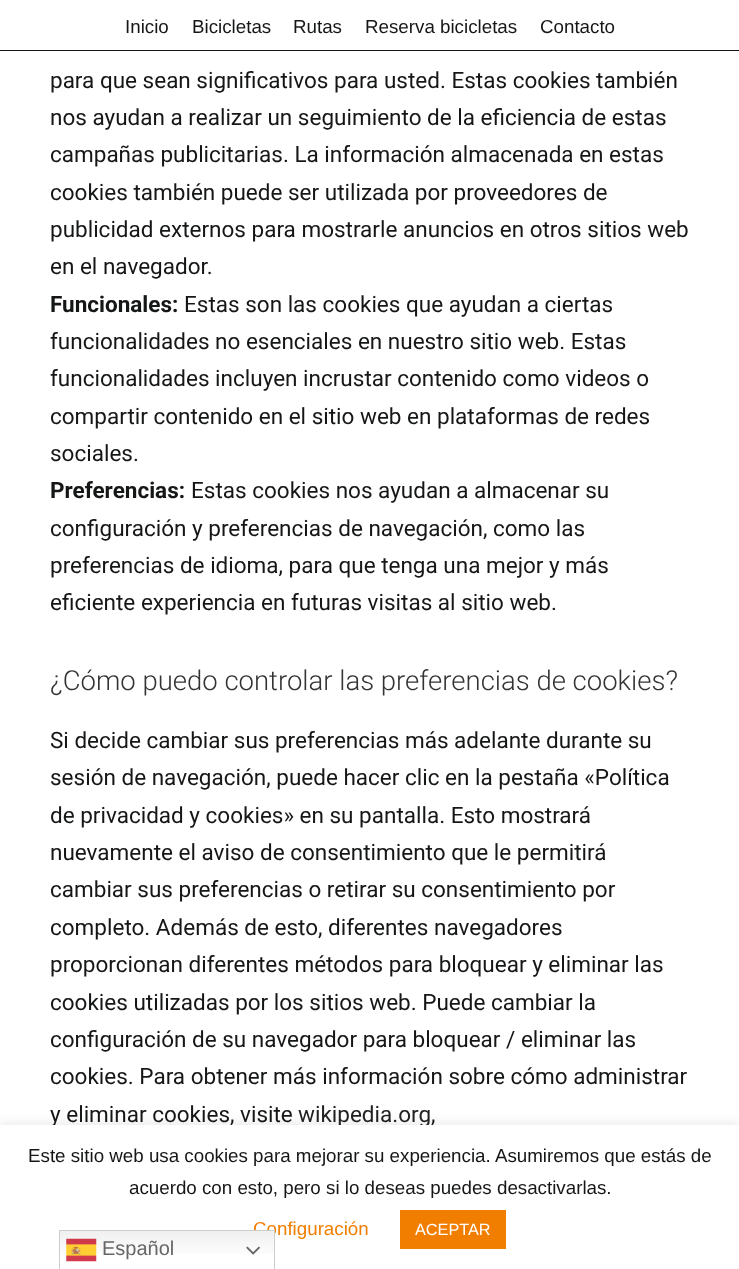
<!DOCTYPE html>
<meta charset="utf-8">
<style>body { margin: 0 } canvas { display: block }</style>
<canvas id="canvas" width="739" height="1269"></canvas>
<img id="img1" src="images/1.png" hidden>
<img id="img2" src="images/2.png" hidden>
<script>
window.onload = function () {
    const canvas = document.getElementById('canvas');
    const context = canvas.getContext('2d');
    context.miterLimit = 4;
    context.fontKerning = 'normal';
    let gradient;

    context.fillStyle = 'rgb(255, 255, 255)';
    context.fillRect(0, 0, 739, 1269);
    context.fillStyle = 'rgb(21, 22, 22)';
    context.fillRect(0, 50, 739, 1);
    context.fillStyle = 'rgba(172, 171, 171, 0.3)';
    context.filter = 'blur(6px)';
    context.beginPath();
    context.rect(0, 1124, 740, 145);
    context.fill();
    context.filter = 'none';
    context.font = '18.75px Liberation Sans';
    context.fillStyle = 'rgb(21, 22, 22)';
    context.fillText('Inicio', 125, 33);
    context.fillText('Bicicletas', 192, 33);
    context.fillText('Rutas', 293, 33);
    context.fillText('Reserva bicicletas', 365, 33);
    context.fillText('Contacto', 540, 33);
    context.font = '22.5px Roboto';
    context.fillText('para que sean significativos para usted. Estas cookies también', 50, 88);
    context.fillText('nos ayudan a realizar un seguimiento de la eficiencia de estas', 50, 125);
    context.fillText('campañas publicitarias. La información almacenada en estas', 50, 162);
    context.fillText('cookies también puede ser utilizada por proveedores de', 50, 200);
    context.fillText('publicidad externos para mostrarle anuncios en otros sitios web', 50, 237);
    context.fillText('en el navegador.', 50, 274);
    context.font = 'bold 22.5px Roboto';
    context.fillText('Funcionales:', 50, 312);
    context.font = '22.5px Roboto';
    context.fillText('Estas son las cookies que ayudan a ciertas', 184, 312);
    context.fillText('funcionalidades no esenciales en nuestro sitio web. Estas', 50, 349);
    context.fillText('funcionalidades incluyen incrustar contenido como videos o', 50, 386);
    context.fillText('compartir contenido en el sitio web en plataformas de redes', 50, 424);
    context.fillText('sociales.', 50, 461);
    context.font = 'bold 22.5px Roboto';
    context.fillText('Preferencias:', 50, 498);
    context.font = '22.5px Roboto';
    context.fillText('Estas cookies nos ayudan a almacenar su', 191, 498);
    context.fillText('configuración y preferencias de navegación, como las', 50, 536);
    context.fillText('preferencias de idioma, para que tenga una mejor y más', 50, 573);
    context.fillText('eficiente experiencia en futuras visitas al sitio web.', 50, 610);
    context.font = '300 27.5px Roboto';
    context.fillStyle = 'rgb(51, 51, 51)';
    context.fillText('¿Cómo puedo controlar las preferencias de cookies?', 50, 690);
    context.font = '22.5px Roboto';
    context.fillStyle = 'rgb(21, 22, 22)';
    context.fillText('Si decide cambiar sus preferencias más adelante durante su', 50, 748);
    context.fillText('sesión de navegación, puede hacer clic en la pestaña «Política', 50, 785);
    context.fillText('de privacidad y cookies» en su pantalla. Esto mostrará', 50, 823);
    context.fillText('nuevamente el aviso de consentimiento que le permitirá', 50, 860);
    context.fillText('cambiar sus preferencias o retirar su consentimiento por', 50, 897);
    context.fillText('completo. Además de esto, diferentes navegadores', 50, 935);
    context.fillText('proporcionan diferentes métodos para bloquear y eliminar las', 50, 972);
    context.fillText('cookies utilizadas por los sitios web. Puede cambiar la', 50, 1010);
    context.fillText('configuración de su navegador para bloquear / eliminar las', 50, 1047);
    context.fillText('cookies. Para obtener más información sobre cómo administrar', 50, 1084);
    context.fillText('y eliminar cookies, visite', 50, 1122);
    context.fillStyle = 'rgb(34, 34, 34)';
    context.fillText('wikipedia.org', 298, 1122);
    context.fillStyle = 'rgb(21, 22, 22)';
    context.fillText(',', 431, 1122);
    context.fillStyle = 'rgb(255, 255, 255)';
    context.fillRect(0, 1125, 739, 144);
    context.font = '18.75px Liberation Sans';
    context.fillStyle = 'rgb(21, 22, 22)';
    context.fillText('Este sitio web usa cookies para mejorar su experiencia. Asumiremos que estás de', 28, 1162);
    context.fillText('acuerdo con esto, pero si lo deseas puedes desactivarlas.', 129, 1194);
    context.fillStyle = 'rgb(242, 126, 0)';
    context.fillText('Configuración', 253, 1235);
    context.fillRect(400, 1210, 106, 39);
    context.font = '16.25px Liberation Sans';
    context.fillStyle = 'rgb(255, 255, 255)';
    context.fillText('ACEPTAR', 415, 1235);
    gradient = context.createLinearGradient(167, 1230, 167, 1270);
    gradient.addColorStop(0, 'rgb(239, 239, 239)');
    gradient.addColorStop(0.7, 'rgb(255, 255, 255)');
    context.fillStyle = gradient;
    context.fillRect(60, 1231, 214, 23);
    context.strokeStyle = 'rgb(204, 204, 204)';
    context.strokeRect(59.5, 1230.5, 215, 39);
    context.drawImage(document.getElementById('img1'), 66, 1238, 31, 24);
    context.font = '20px Liberation Sans';
    context.fillStyle = 'rgb(102, 102, 102)';
    context.fillText('Español', 102, 1255);
    context.drawImage(document.getElementById('img2'), 246, 1246, 14, 9);
};
</script>
